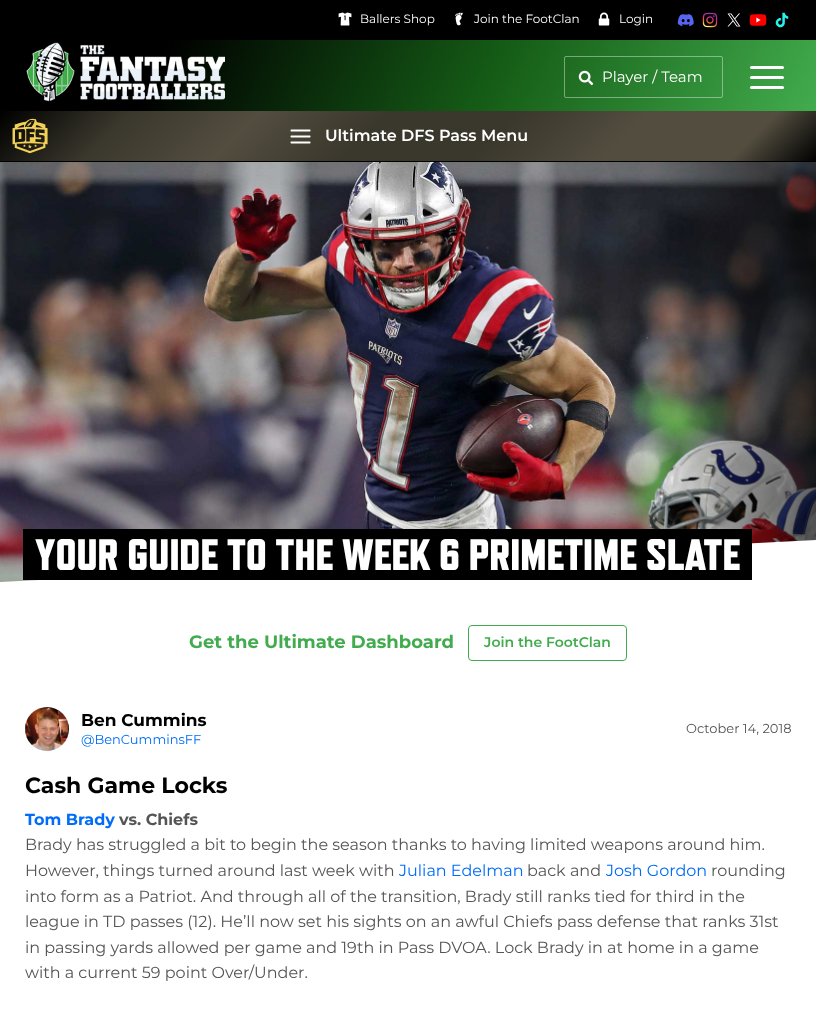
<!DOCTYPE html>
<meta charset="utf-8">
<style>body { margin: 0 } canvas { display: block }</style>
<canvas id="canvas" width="816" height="1018"></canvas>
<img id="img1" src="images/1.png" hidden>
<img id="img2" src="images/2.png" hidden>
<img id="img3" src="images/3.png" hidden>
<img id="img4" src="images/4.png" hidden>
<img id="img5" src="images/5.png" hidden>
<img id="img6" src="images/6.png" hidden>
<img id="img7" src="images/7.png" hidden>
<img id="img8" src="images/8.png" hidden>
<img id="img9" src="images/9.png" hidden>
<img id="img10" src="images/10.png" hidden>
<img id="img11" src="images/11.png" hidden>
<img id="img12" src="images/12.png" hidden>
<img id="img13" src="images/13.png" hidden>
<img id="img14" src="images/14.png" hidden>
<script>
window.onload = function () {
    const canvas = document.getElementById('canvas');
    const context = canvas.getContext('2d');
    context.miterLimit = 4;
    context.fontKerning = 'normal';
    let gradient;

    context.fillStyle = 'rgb(255, 255, 255)';
    context.fillRect(0, 0, 816, 1018);
    context.fillStyle = 'rgb(0, 0, 0)';
    context.fillRect(0, 0, 816, 40);
    context.drawImage(document.getElementById('img1'), 338, 12, 14, 14);
    context.drawImage(document.getElementById('img2'), 455, 12, 8, 14);
    context.drawImage(document.getElementById('img3'), 598, 12, 12, 14);
    context.drawImage(document.getElementById('img4'), 677, 14, 17, 13);
    context.drawImage(document.getElementById('img5'), 702, 12, 16, 16);
    context.drawImage(document.getElementById('img6'), 727, 13, 14, 14);
    context.drawImage(document.getElementById('img7'), 749, 14, 18, 12);
    context.drawImage(document.getElementById('img8'), 775, 12, 14, 16);
    gradient = context.createLinearGradient(59, -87, 757, 239);
    gradient.addColorStop(0.2, 'rgb(0, 0, 0)');
    gradient.addColorStop(0.6, 'rgb(21, 92, 22)');
    gradient.addColorStop(1, 'rgb(66, 172, 77)');
    context.fillStyle = gradient;
    context.fillRect(0, 40, 816, 71);
    context.drawImage(document.getElementById('img9'), 26, 42, 199, 60);
    context.beginPath();
    context.roundRect(564.5, 56.5, 158, 41, 1.5);
    context.strokeStyle = 'rgba(255, 255, 255, 0.4)';
    context.stroke();
    context.drawImage(document.getElementById('img10'), 578, 70, 16, 16);
    context.fillStyle = 'rgb(255, 255, 255)';
    context.beginPath();
    context.roundRect(750, 66, 34, 3, 1.5);
    context.fill();
    context.beginPath();
    context.roundRect(750, 76, 34, 3, 1.5);
    context.fill();
    context.beginPath();
    context.roundRect(750, 86, 34, 3, 1.5);
    context.fill();
    gradient = context.createLinearGradient(625, 353, 191, -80);
    gradient.addColorStop(0, 'rgb(0, 0, 0)');
    gradient.addColorStop(0.1, 'rgb(82, 77, 63)');
    gradient.addColorStop(0.25, 'rgb(82, 77, 63)');
    gradient.addColorStop(0.4, 'rgb(58, 55, 44)');
    gradient.addColorStop(0.55, 'rgb(58, 55, 44)');
    gradient.addColorStop(0.7, 'rgb(82, 77, 63)');
    gradient.addColorStop(0.85, 'rgb(58, 55, 44)');
    gradient.addColorStop(1, 'rgb(0, 0, 0)');
    context.fillStyle = gradient;
    context.fillRect(0, 111, 816, 50);
    context.drawImage(document.getElementById('img11'), 12, 118, 36, 36);
    context.fillStyle = 'rgb(0, 0, 0)';
    context.fillRect(0, 161, 816, 1);
    context.drawImage(document.getElementById('img12'), 290, 129, 21, 15);
    context.drawImage(document.getElementById('img13'), 0, 162, 816, 420);
    context.fillStyle = 'rgb(255, 255, 255)';
    context.beginPath();
    context.moveTo(0, 582);
    context.lineTo(816, 540);
    context.lineTo(816, 840);
    context.lineTo(0, 882);
    context.closePath();
    context.fill();
    context.fillStyle = 'rgb(0, 0, 0)';
    context.fillRect(23, 529, 12, 51);
    context.fillRect(35, 529, 717, 51);
    context.beginPath();
    context.roundRect(468.5, 625.5, 158, 35, 3.5);
    context.strokeStyle = 'rgb(66, 171, 78)';
    context.stroke();
    context.fillStyle = 'rgb(216, 216, 216)';
    context.beginPath();
    context.arc(47, 729, 22, 0, 2 * Math.PI);
    context.fill();
    context.drawImage(document.getElementById('img14'), 25, 707, 44, 44);
    context.font = '12px Montserrat';
    context.fillStyle = 'rgb(255, 255, 255)';
    context.fillText('Ballers Shop', 360, 23);
    context.fillText('Join the FootClan', 474, 23);
    context.fillText('Login', 619, 23);
    context.font = '15px Montserrat';
    context.fillText('Player / Team', 602, 82);
    context.font = '600 16px Montserrat';
    context.fillText('Ultimate DFS Pass Menu', 325, 141);
    context.font = '900 44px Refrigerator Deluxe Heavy';
    context.fillText('YOUR GUIDE TO THE WEEK 6 PRIMETIME SLATE', 35, 570);
    context.font = 'bold 18px Montserrat';
    context.fillStyle = 'rgb(66, 171, 78)';
    context.fillText('Get the Ultimate Dashboard', 189, 648);
    context.font = '600 14px Montserrat';
    context.fillText('Join the FootClan', 484, 647);
    context.font = 'bold 17px Montserrat';
    context.fillStyle = 'rgb(0, 0, 0)';
    context.fillText('Ben Cummins', 81, 726);
    context.font = '13px Montserrat';
    context.fillStyle = 'rgb(1, 108, 249)';
    context.fillText('@BenCumminsFF', 81, 744);
    context.fillStyle = 'rgb(85, 85, 85)';
    context.fillText('October 14, 2018', 686, 733);
    context.font = 'bold 22px Montserrat';
    context.fillStyle = 'rgb(0, 0, 0)';
    context.fillText('Cash Game Locks', 25, 793);
    context.font = 'bold 16px Montserrat';
    context.fillStyle = 'rgb(1, 108, 249)';
    context.fillText('Tom Brady', 25, 825);
    context.fillStyle = 'rgb(85, 85, 85)';
    context.fillText('vs. Chiefs', 119, 825);
    context.font = '16px Montserrat';
    context.fillText('Brady has struggled a bit to begin the season thanks to having limited weapons around him.', 25, 850);
    context.fillText('However, things turned around last week with', 25, 876);
    context.fillStyle = 'rgb(1, 108, 249)';
    context.fillText('Julian Edelman', 399, 876);
    context.fillStyle = 'rgb(85, 85, 85)';
    context.fillText('back and', 527, 876);
    context.fillStyle = 'rgb(1, 108, 249)';
    context.fillText('Josh Gordon', 606, 876);
    context.fillStyle = 'rgb(85, 85, 85)';
    context.fillText('rounding', 711, 876);
    context.fillText('into form as a Patriot. And through all of the transition, Brady still ranks tied for third in the', 25, 902);
    context.fillText('league in TD passes (12). He’ll now set his sights on an awful Chiefs pass defense that ranks 31st', 25, 927);
    context.fillText('in passing yards allowed per game and 19th in Pass DVOA. Lock Brady in at home in a game', 25, 953);
    context.fillText('with a current 59 point Over/Under.', 25, 978);
};
</script>
